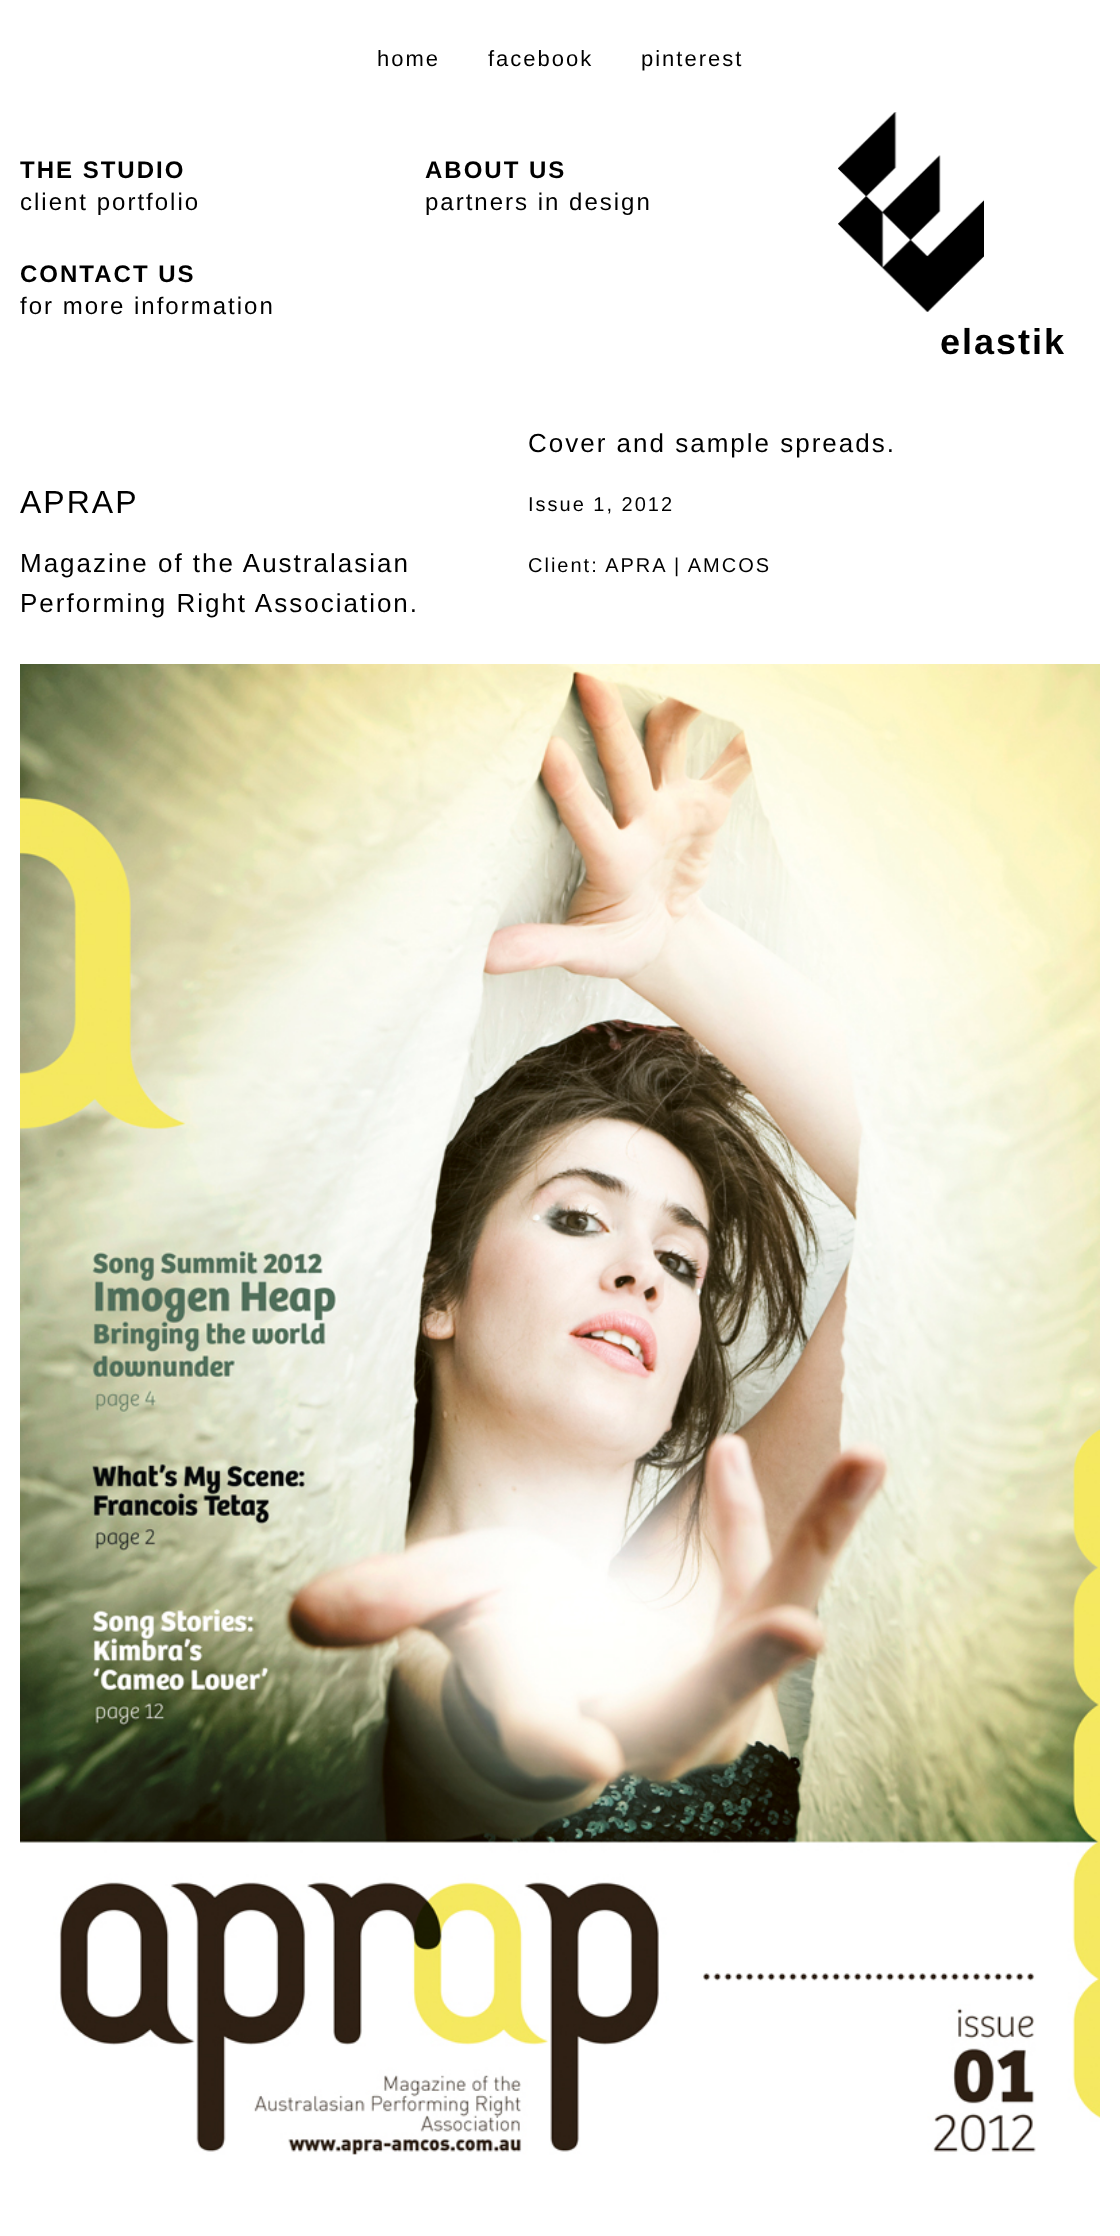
<!DOCTYPE html>
<meta charset="utf-8">
<style>body { margin: 0 } canvas { display: block }</style>
<canvas id="canvas" width="1120" height="2236"></canvas>
<img id="img1" src="images/1.png" hidden>
<img id="img2" src="images/2.png" hidden>
<script>
window.onload = function () {
    const canvas = document.getElementById('canvas');
    const context = canvas.getContext('2d');
    context.miterLimit = 4;
    context.fontKerning = 'normal';

    context.fillStyle = 'rgb(255, 255, 255)';
    context.fillRect(0, 0, 1120, 2236);
    context.drawImage(document.getElementById('img1'), 838, 112, 146, 200);
    context.drawImage(document.getElementById('img2'), 20, 664, 1080, 1491);
    context.letterSpacing = '2px';
    context.font = '22px Liberation Sans';
    context.fillStyle = 'rgb(0, 0, 0)';
    context.fillText('home', 377, 66);
    context.fillText('facebook', 488, 66);
    context.fillText('pinterest', 641, 66);
    context.font = 'bold 24px Liberation Sans';
    context.fillText('THE STUDIO', 20, 178);
    context.font = '24px Liberation Sans';
    context.fillText('client portfolio', 20, 210);
    context.font = 'bold 24px Liberation Sans';
    context.fillText('ABOUT US', 425, 178);
    context.font = '24px Liberation Sans';
    context.fillText('partners in design', 425, 210);
    context.font = 'bold 24px Liberation Sans';
    context.fillText('CONTACT US', 20, 282);
    context.font = '24px Liberation Sans';
    context.fillText('for more information', 20, 314);
    context.font = 'bold 36px Liberation Sans';
    context.fillText('elastik', 940, 354);
    context.font = '26px Liberation Sans';
    context.fillText('Cover and sample spreads.', 528, 452);
    context.font = '32px Liberation Sans';
    context.fillText('APRAP', 20, 513);
    context.font = '20px Liberation Sans';
    context.fillText('Issue 1, 2012', 528, 511);
    context.font = '26px Liberation Sans';
    context.fillText('Magazine of the Australasian', 20, 572);
    context.fillText('Performing Right Association.', 20, 612);
    context.font = '20px Liberation Sans';
    context.fillText('Client: APRA | AMCOS', 528, 572);
};
</script>
